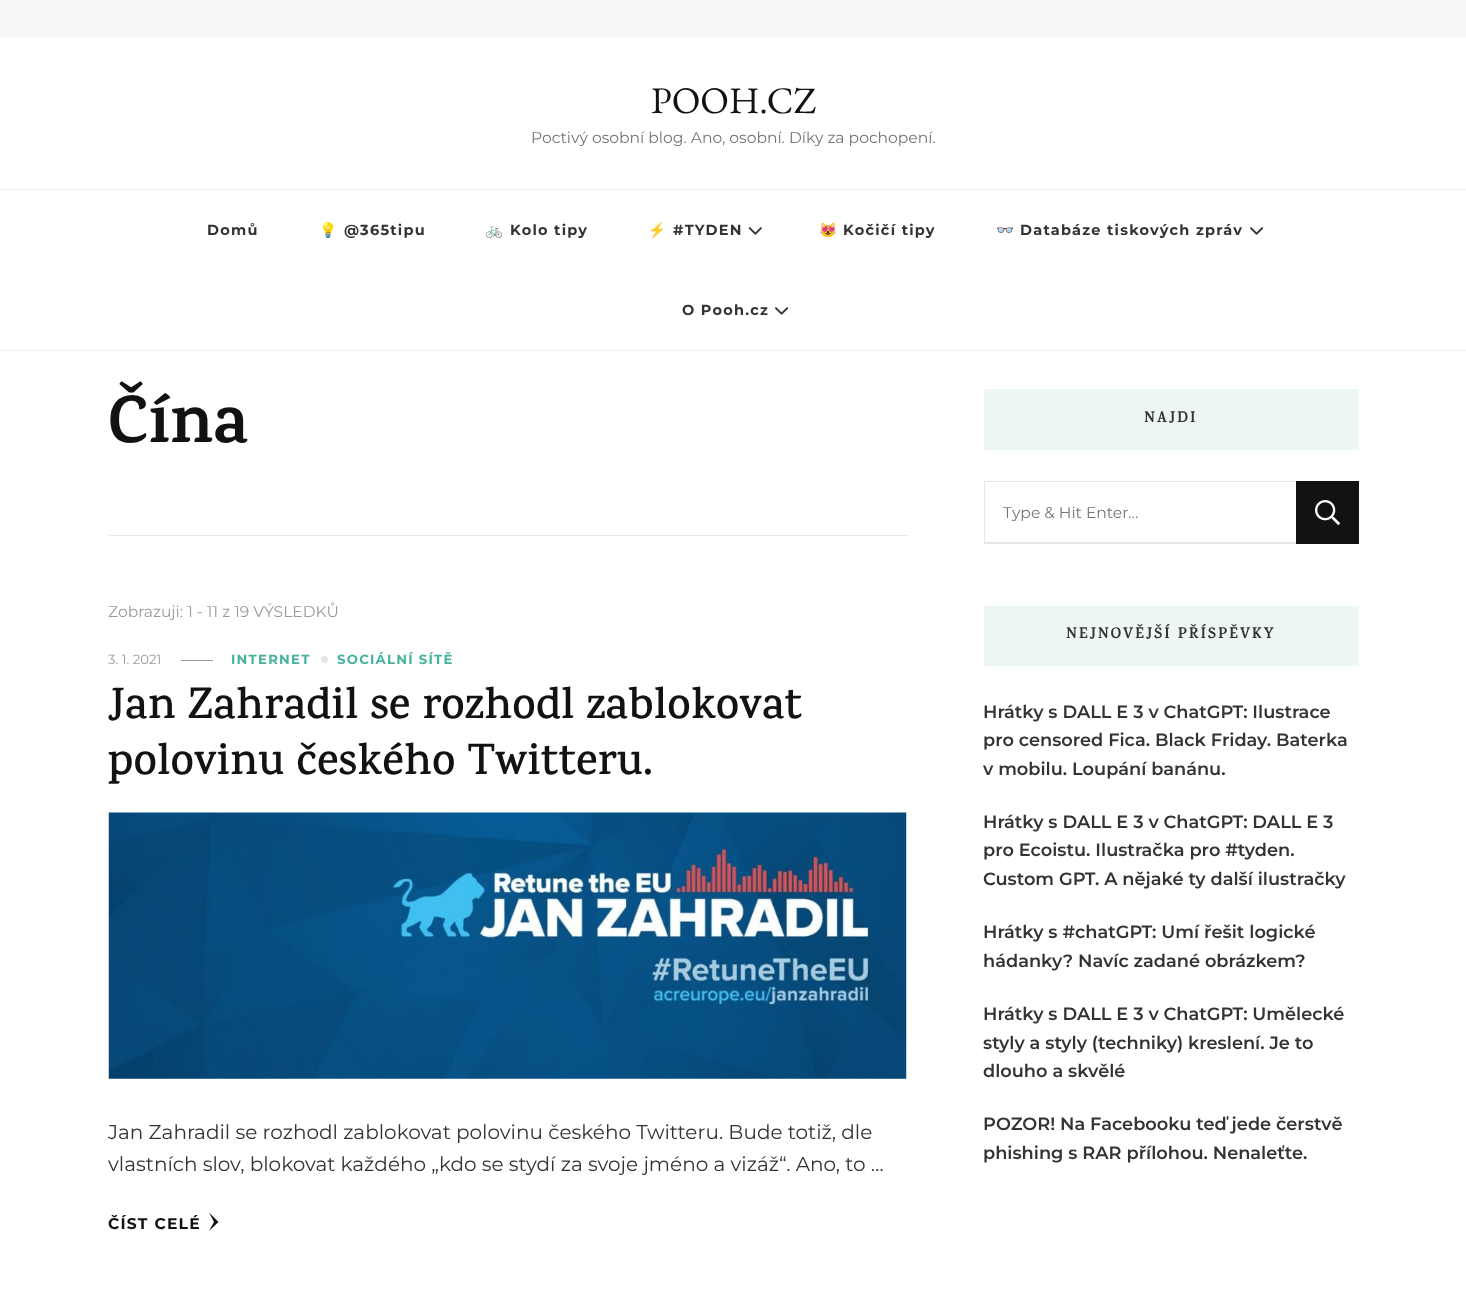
<!DOCTYPE html>
<meta charset="utf-8">
<style>body { margin: 0 } canvas { display: block }</style>
<canvas id="canvas" width="1466" height="1297"></canvas>
<img id="img1" src="images/1.png" hidden>
<img id="img2" src="images/2.png" hidden>
<img id="img3" src="images/3.png" hidden>
<img id="img4" src="images/4.png" hidden>
<script>
window.onload = function () {
    const canvas = document.getElementById('canvas');
    const context = canvas.getContext('2d');
    context.miterLimit = 4;
    context.fontKerning = 'normal';

    context.fillStyle = 'rgb(255, 255, 255)';
    context.fillRect(0, 0, 1466, 1297);
    context.fillStyle = 'rgb(247, 247, 247)';
    context.fillRect(0, 0, 1466, 38);
    context.fillStyle = 'rgb(237, 237, 237)';
    context.fillRect(0, 189, 1466, 1);
    context.fillRect(0, 350, 1466, 1);
    context.drawImage(document.getElementById('img1'), 748, 227, 14, 8);
    context.drawImage(document.getElementById('img2'), 1250, 227, 14, 8);
    context.drawImage(document.getElementById('img2'), 775, 307, 14, 8);
    context.fillStyle = 'rgb(230, 230, 230)';
    context.fillRect(109, 535, 799, 1);
    context.fillStyle = 'rgb(153, 153, 153)';
    context.fillRect(181, 660, 32, 1);
    context.fillStyle = 'rgb(230, 230, 230)';
    context.beginPath();
    context.arc(324.5, 659.5, 3.5, 0, 2 * Math.PI);
    context.fill();
    context.drawImage(document.getElementById('img3'), 108, 812, 799, 267);
    context.fillStyle = 'rgb(18, 18, 18)';
    context.beginPath();
    context.moveTo(218.5, 1222);
    context.lineTo(209, 1231);
    context.lineTo(214, 1222);
    context.lineTo(209, 1212.5);
    context.closePath();
    context.fill();
    context.fillStyle = 'rgb(236, 247, 245)';
    context.fillRect(984, 389, 375, 61);
    context.fillStyle = 'rgb(230, 230, 230)';
    context.beginPath();
    context.moveTo(984, 481);
    context.lineTo(1296, 481);
    context.lineTo(1296, 482);
    context.lineTo(985, 482);
    context.closePath();
    context.fill();
    context.beginPath();
    context.moveTo(1296, 544);
    context.lineTo(984, 544);
    context.lineTo(985, 542);
    context.lineTo(1296, 542);
    context.closePath();
    context.fill();
    context.fillStyle = 'rgba(0, 0, 0, 0.1)';
    context.beginPath();
    context.moveTo(984, 544);
    context.lineTo(984, 481);
    context.lineTo(985, 482);
    context.lineTo(985, 542);
    context.closePath();
    context.fill();
    context.fillStyle = 'rgb(18, 18, 18)';
    context.fillRect(1296, 481, 63, 63);
    context.drawImage(document.getElementById('img4'), 1315, 500, 25, 25);
    context.fillStyle = 'rgb(236, 247, 245)';
    context.fillRect(984, 606, 375, 60);
    context.font = '37.5px EB Garamond';
    context.fillStyle = 'rgb(18, 18, 18)';
    context.fillText('POOH.CZ', 651, 113);
    context.font = '15.55px Montserrat';
    context.fillStyle = 'rgb(117, 117, 117)';
    context.fillText('Poctivý osobní blog. Ano, osobní. Díky za pochopení.', 531, 143);
    context.letterSpacing = '1.25px';
    context.font = 'bold 14.5px Montserrat';
    context.fillStyle = 'rgb(51, 51, 51)';
    context.fillText('Domů', 207, 235);
    context.font = 'bold 14.5px Noto Color Emoji';
    context.fillText('💡', 319, 235);
    context.font = 'bold 14.5px Montserrat';
    context.fillText('@365tipu', 344, 235);
    context.font = 'bold 14.5px Noto Color Emoji';
    context.fillText('🚲', 485, 235);
    context.font = 'bold 14.5px Montserrat';
    context.fillText('Kolo tipy', 510, 235);
    context.font = 'bold 14.5px Noto Color Emoji';
    context.fillText('⚡', 648, 235);
    context.font = 'bold 14.5px Montserrat';
    context.fillText('#TYDEN', 673, 235);
    context.font = 'bold 14.5px Noto Color Emoji';
    context.fillText('😻', 819, 235);
    context.font = 'bold 14.5px Montserrat';
    context.fillText('Kočičí tipy', 843, 235);
    context.font = 'bold 14.5px Noto Color Emoji';
    context.fillText('👓', 996, 235);
    context.font = 'bold 14.5px Montserrat';
    context.fillText('Databáze tiskových zpráv', 1020, 235);
    context.fillText('O Pooh.cz', 682, 315);
    context.letterSpacing = '0px';
    context.font = 'bold 67px Karma';
    context.fillStyle = 'rgb(18, 18, 18)';
    context.fillText('Čína', 108, 442);
    context.font = '15.55px Montserrat';
    context.fillStyle = 'rgb(153, 153, 153)';
    context.fillText('Zobrazuji: 1 - 11 z 19 VÝSLEDKŮ', 108, 617);
    context.font = '13.25px Montserrat';
    context.fillText('3. 1. 2021', 108, 664);
    context.letterSpacing = '1.25px';
    context.font = 'bold 13.25px Montserrat';
    context.fillStyle = 'rgb(69, 178, 157)';
    context.fillText('INTERNET', 231, 664);
    context.fillText('SOCIÁLNÍ SÍTĚ', 337, 664);
    context.letterSpacing = '0px';
    context.font = '600 44.4px Karma';
    context.fillStyle = 'rgb(18, 18, 18)';
    context.fillText('Jan Zahradil se rozhodl zablokovat', 108, 718);
    context.fillText('polovinu českého Twitteru.', 108, 774);
    context.font = '20px Montserrat';
    context.fillStyle = 'rgb(51, 51, 51)';
    context.fillText('Jan Zahradil se rozhodl zablokovat polovinu českého Twitteru. Bude totiž, dle', 108, 1139);
    context.fillText('vlastních slov, blokovat každého „kdo se stydí za svoje jméno a vizáž“. Ano, to …', 108, 1171);
    context.letterSpacing = '1.25px';
    context.font = 'bold 15.55px Montserrat';
    context.fillStyle = 'rgb(18, 18, 18)';
    context.fillText('ČÍST CELÉ', 108, 1229);
    context.letterSpacing = '1.9px';
    context.font = 'bold 15.55px Karma';
    context.fillStyle = 'rgb(51, 51, 51)';
    context.fillText('NAJDI', 1144, 422);
    context.letterSpacing = '0px';
    context.font = '15.55px Montserrat';
    context.fillStyle = 'rgb(117, 117, 117)';
    context.fillText('Type & Hit Enter…', 1003, 518);
    context.letterSpacing = '1.9px';
    context.font = 'bold 15.55px Karma';
    context.fillStyle = 'rgb(51, 51, 51)';
    context.fillText('NEJNOVĚJŠÍ PŘÍSPĚVKY', 1066, 638);
    context.letterSpacing = '0px';
    context.font = '600 17.75px Montserrat';
    context.fillText('Hrátky s DALL E 3 v ChatGPT: Ilustrace', 983, 718);
    context.fillText('pro censored Fica. Black Friday. Baterka', 983, 746);
    context.fillText('v mobilu. Loupání banánu.', 983, 775);
    context.fillText('Hrátky s DALL E 3 v ChatGPT: DALL E 3', 983, 828);
    context.fillText('pro Ecoistu. Ilustračka pro #tyden.', 983, 856);
    context.fillText('Custom GPT. A nějaké ty další ilustračky', 983, 885);
    context.fillText('Hrátky s #chatGPT: Umí řešit logické', 983, 938);
    context.fillText('hádanky? Navíc zadané obrázkem?', 983, 967);
    context.fillText('Hrátky s DALL E 3 v ChatGPT: Umělecké', 983, 1020);
    context.fillText('styly a styly (techniky) kreslení. Je to', 983, 1049);
    context.fillText('dlouho a skvělé', 983, 1077);
    context.fillText('POZOR! Na Facebooku teď jede čerstvě', 983, 1130);
    context.fillText('phishing s RAR přílohou. Nenaleťte.', 983, 1159);
};
</script>
